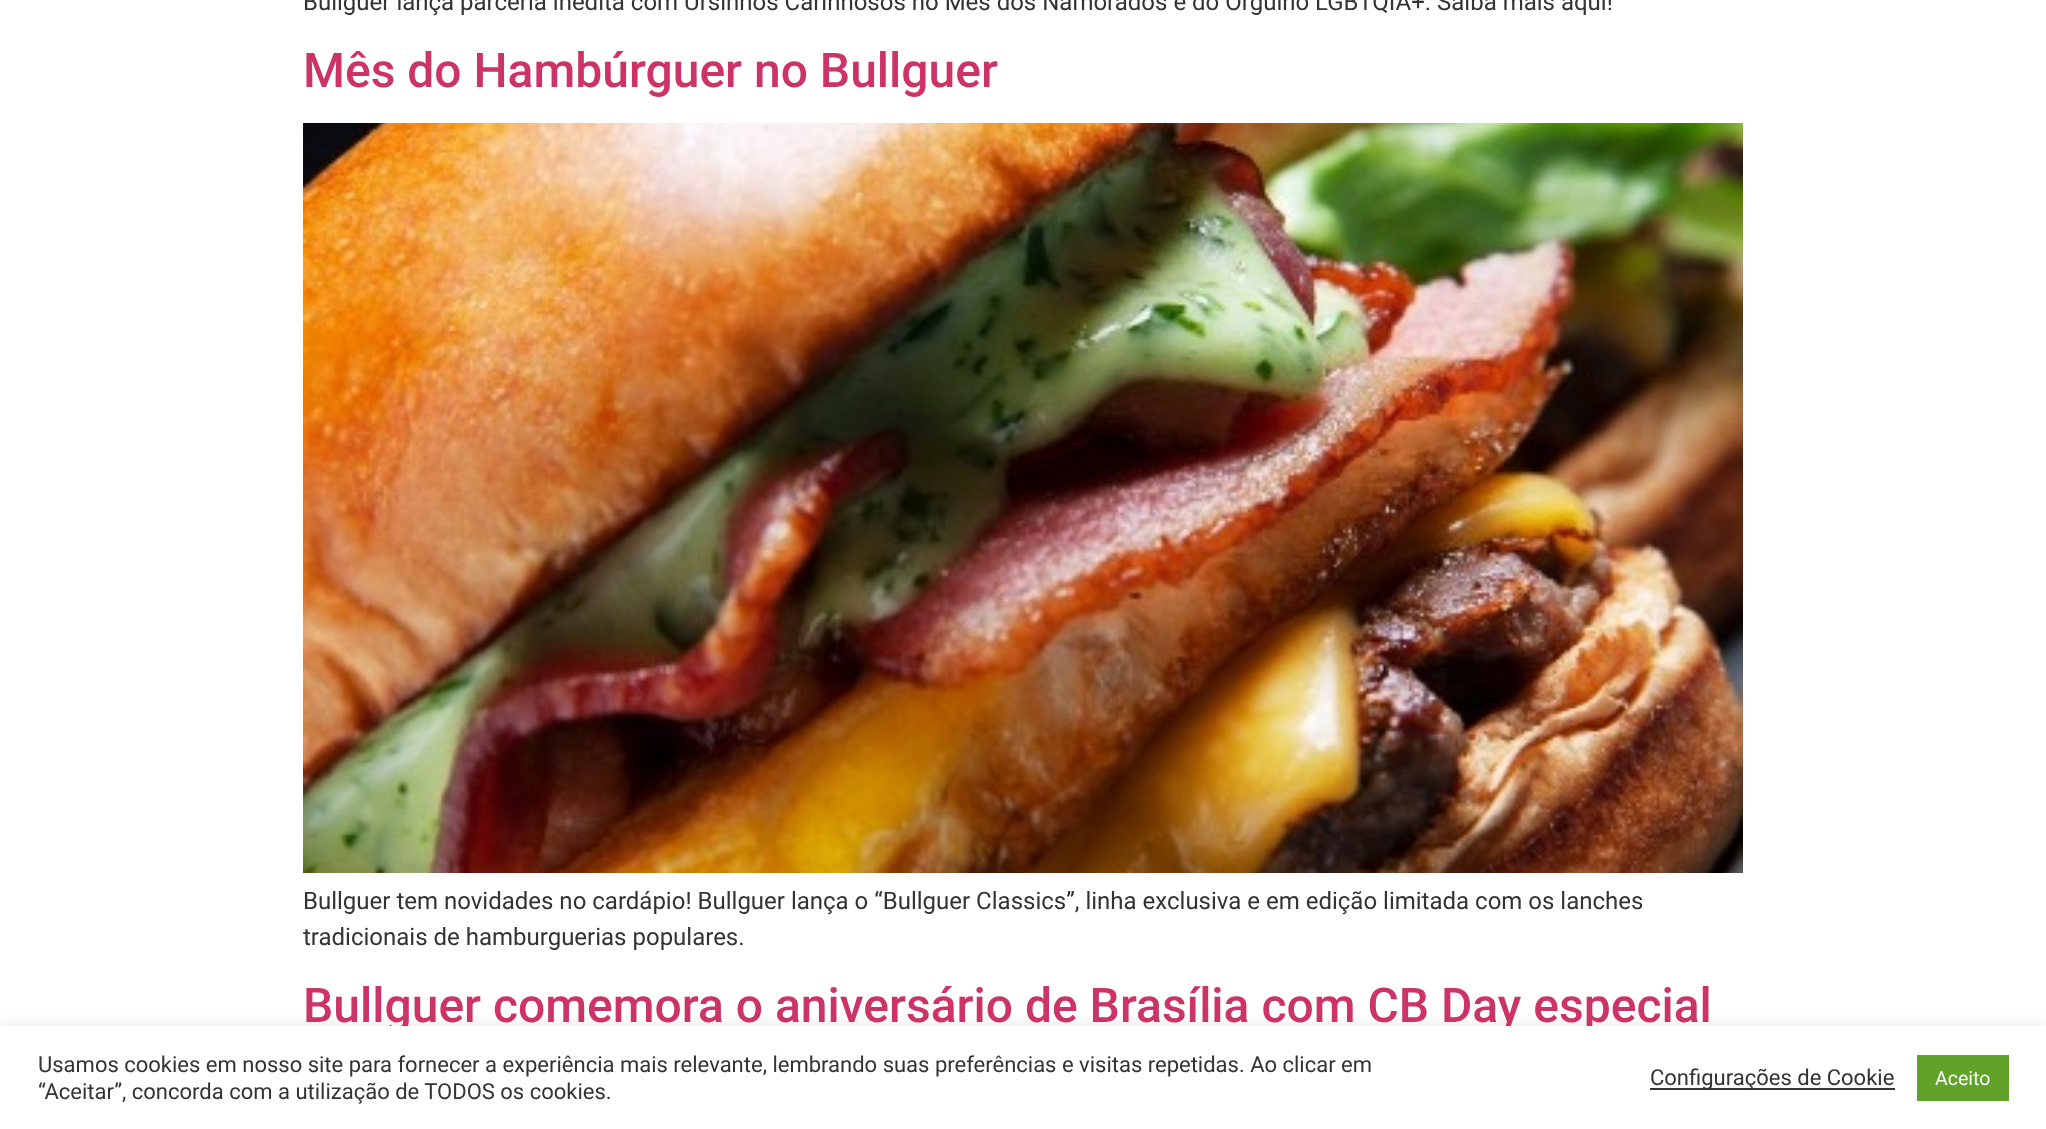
<!DOCTYPE html>
<meta charset="utf-8">
<style>body { margin: 0 } canvas { display: block }</style>
<canvas id="canvas" width="2046" height="1129"></canvas>
<img id="img1" src="images/1.png" hidden>
<script>
window.onload = function () {
    const canvas = document.getElementById('canvas');
    const context = canvas.getContext('2d');
    context.miterLimit = 4;
    context.fontKerning = 'normal';

    context.fillStyle = 'rgb(255, 255, 255)';
    context.fillRect(0, 0, 2046, 1129);
    context.drawImage(document.getElementById('img1'), 303, 123, 1440, 750);
    context.fillStyle = 'rgba(172, 171, 171, 0.3)';
    context.filter = 'blur(7.5px)';
    context.beginPath();
    context.rect(0, 1025, 2046, 103);
    context.fill();
    context.filter = 'none';
    context.font = '24px Roboto';
    context.fillStyle = 'rgb(51, 51, 51)';
    context.fillText('Bullguer lança parceria inédita com Ursinhos Carinhosos no Mês dos Namorados e do Orgulho LGBTQIA+. Saiba mais aqui!', 303, 10);
    context.font = '500 48px Roboto';
    context.fillStyle = 'rgb(204, 51, 102)';
    context.fillText('Mês do Hambúrguer no Bullguer', 303, 87);
    context.font = '24px Roboto';
    context.fillStyle = 'rgb(51, 51, 51)';
    context.fillText('Bullguer tem novidades no cardápio! Bullguer lança o “Bullguer Classics”, linha exclusiva e em edição limitada com os lanches', 303, 909);
    context.fillText('tradicionais de hamburguerias populares.', 303, 945);
    context.font = '500 48px Roboto';
    context.fillStyle = 'rgb(204, 51, 102)';
    context.fillText('Bullguer comemora o aniversário de Brasília com CB Day especial', 303, 1022);
    context.fillStyle = 'rgb(255, 255, 255)';
    context.fillRect(0, 1026, 2046, 103);
    context.font = '22px Roboto';
    context.fillStyle = 'rgb(51, 51, 51)';
    context.fillText('Usamos cookies em nosso site para fornecer a experiência mais relevante, lembrando suas preferências e visitas repetidas. Ao clicar em', 38, 1072);
    context.fillText('“Aceitar”, concorda com a utilização de TODOS os cookies.', 38, 1099);
    context.fillRect(1650, 1088, 245, 2);
    context.fillText('Configurações de Cookie', 1650, 1085);
    context.fillStyle = 'rgb(97, 162, 41)';
    context.fillRect(1917, 1055, 92, 46);
    context.font = '19.5px Roboto';
    context.fillStyle = 'rgb(255, 255, 255)';
    context.fillText('Aceito', 1935, 1085);
};
</script>
